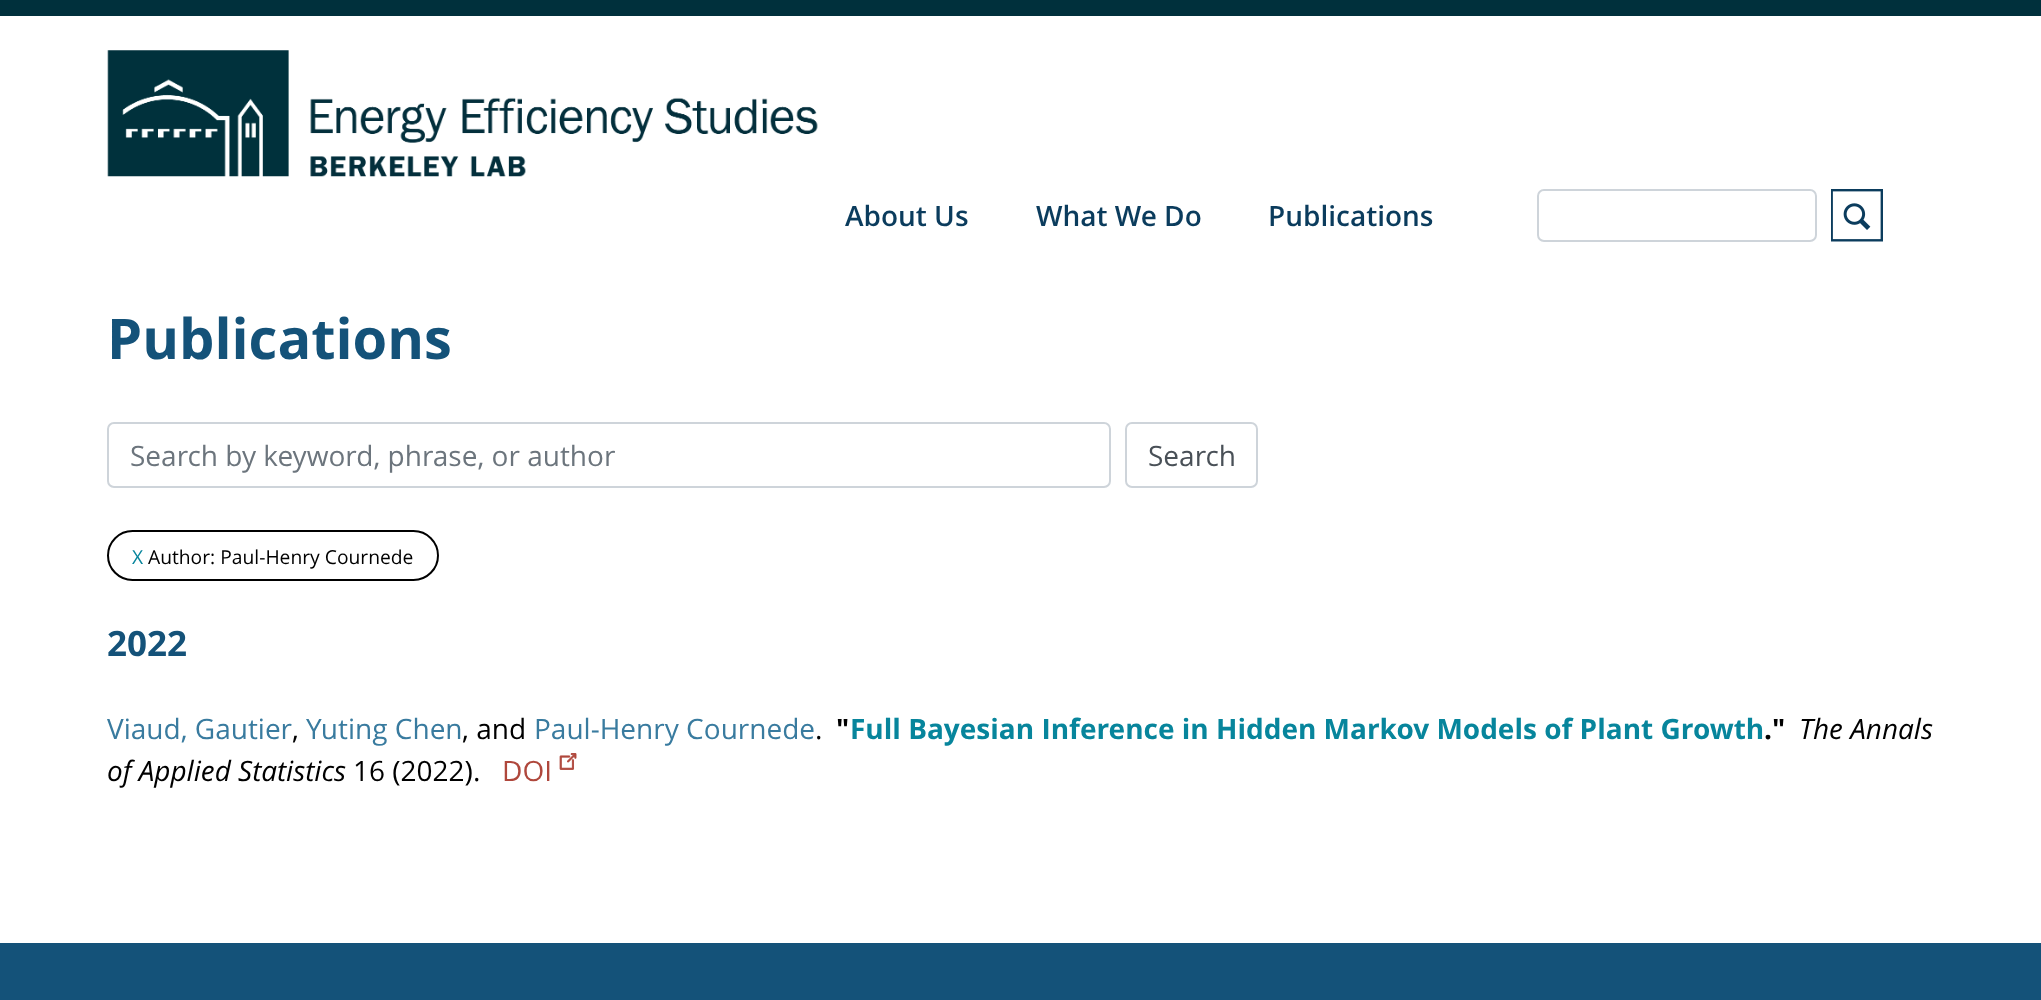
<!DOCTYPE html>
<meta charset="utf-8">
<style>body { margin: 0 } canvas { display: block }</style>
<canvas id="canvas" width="2041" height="1000"></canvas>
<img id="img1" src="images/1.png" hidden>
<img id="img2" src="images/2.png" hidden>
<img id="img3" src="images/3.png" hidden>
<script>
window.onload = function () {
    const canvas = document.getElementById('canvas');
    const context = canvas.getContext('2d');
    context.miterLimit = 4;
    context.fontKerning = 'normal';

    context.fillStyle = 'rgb(255, 255, 255)';
    context.fillRect(0, 0, 2041, 1000);
    context.fillStyle = 'rgb(0, 48, 60)';
    context.fillRect(0, 0, 2041, 16);
    context.drawImage(document.getElementById('img1'), 107, 50, 711, 127);
    context.beginPath();
    context.roundRect(1538, 190, 278, 51, 6);
    context.strokeStyle = 'rgb(206, 212, 218)';
    context.lineWidth = 2;
    context.stroke();
    context.drawImage(document.getElementById('img2'), 1831, 189, 52, 53);
    context.beginPath();
    context.roundRect(108, 423, 1002, 64, 6);
    context.stroke();
    context.beginPath();
    context.roundRect(1126, 423, 131, 64, 6);
    context.stroke();
    context.beginPath();
    context.roundRect(108, 531, 330, 49, 24.5);
    context.strokeStyle = 'rgb(0, 0, 0)';
    context.stroke();
    context.drawImage(document.getElementById('img3'), 559, 753, 18, 17);
    context.fillStyle = 'rgb(20, 82, 121)';
    context.fillRect(0, 943, 2041, 57);
    context.font = '600 28px Open Sans';
    context.fillStyle = 'rgb(11, 60, 93)';
    context.fillText('About Us', 845, 226);
    context.fillText('What We Do', 1036, 226);
    context.fillText('Publications', 1268, 226);
    context.font = 'bold 56px Open Sans';
    context.fillStyle = 'rgb(20, 82, 121)';
    context.fillText('Publications', 107, 359);
    context.font = '28px Open Sans';
    context.fillStyle = 'rgb(108, 117, 125)';
    context.fillText('Search by keyword, phrase, or author', 130, 466);
    context.fillStyle = 'rgb(73, 80, 87)';
    context.fillText('Search', 1148, 466);
    context.font = '19.25px Open Sans';
    context.fillStyle = 'rgb(7, 133, 156)';
    context.fillText('X', 132, 564);
    context.fillStyle = 'rgb(0, 0, 0)';
    context.fillText('Author: Paul-Henry Cournede', 148, 564);
    context.font = 'bold 35px Open Sans';
    context.fillStyle = 'rgb(20, 82, 121)';
    context.fillText('2022', 107, 656);
    context.font = '28px Open Sans';
    context.fillStyle = 'rgb(57, 123, 159)';
    context.fillText('Viaud, Gautier', 107, 739);
    context.fillStyle = 'rgb(0, 0, 0)';
    context.fillText(',', 292, 739);
    context.fillStyle = 'rgb(57, 123, 159)';
    context.fillText('Yuting Chen', 306, 739);
    context.fillStyle = 'rgb(0, 0, 0)';
    context.fillText(', and', 462, 739);
    context.fillStyle = 'rgb(57, 123, 159)';
    context.fillText('Paul-Henry Cournede', 534, 739);
    context.fillStyle = 'rgb(0, 0, 0)';
    context.fillText('.', 815, 739);
    context.font = 'bold 28px Open Sans';
    context.fillText('"', 836, 739);
    context.fillStyle = 'rgb(7, 133, 156)';
    context.fillText('Full Bayesian Inference in Hidden Markov Models of Plant Growth', 850, 739);
    context.fillStyle = 'rgb(0, 0, 0)';
    context.fillText('."', 1764, 739);
    context.font = 'italic 28px Open Sans';
    context.fillText('The Annals', 1799, 739);
    context.fillText('of Applied Statistics', 107, 781);
    context.font = '28px Open Sans';
    context.fillText('16 (2022).', 353, 781);
    context.fillStyle = 'rgb(175, 71, 60)';
    context.fillText('DOI', 502, 781);
};
</script>
